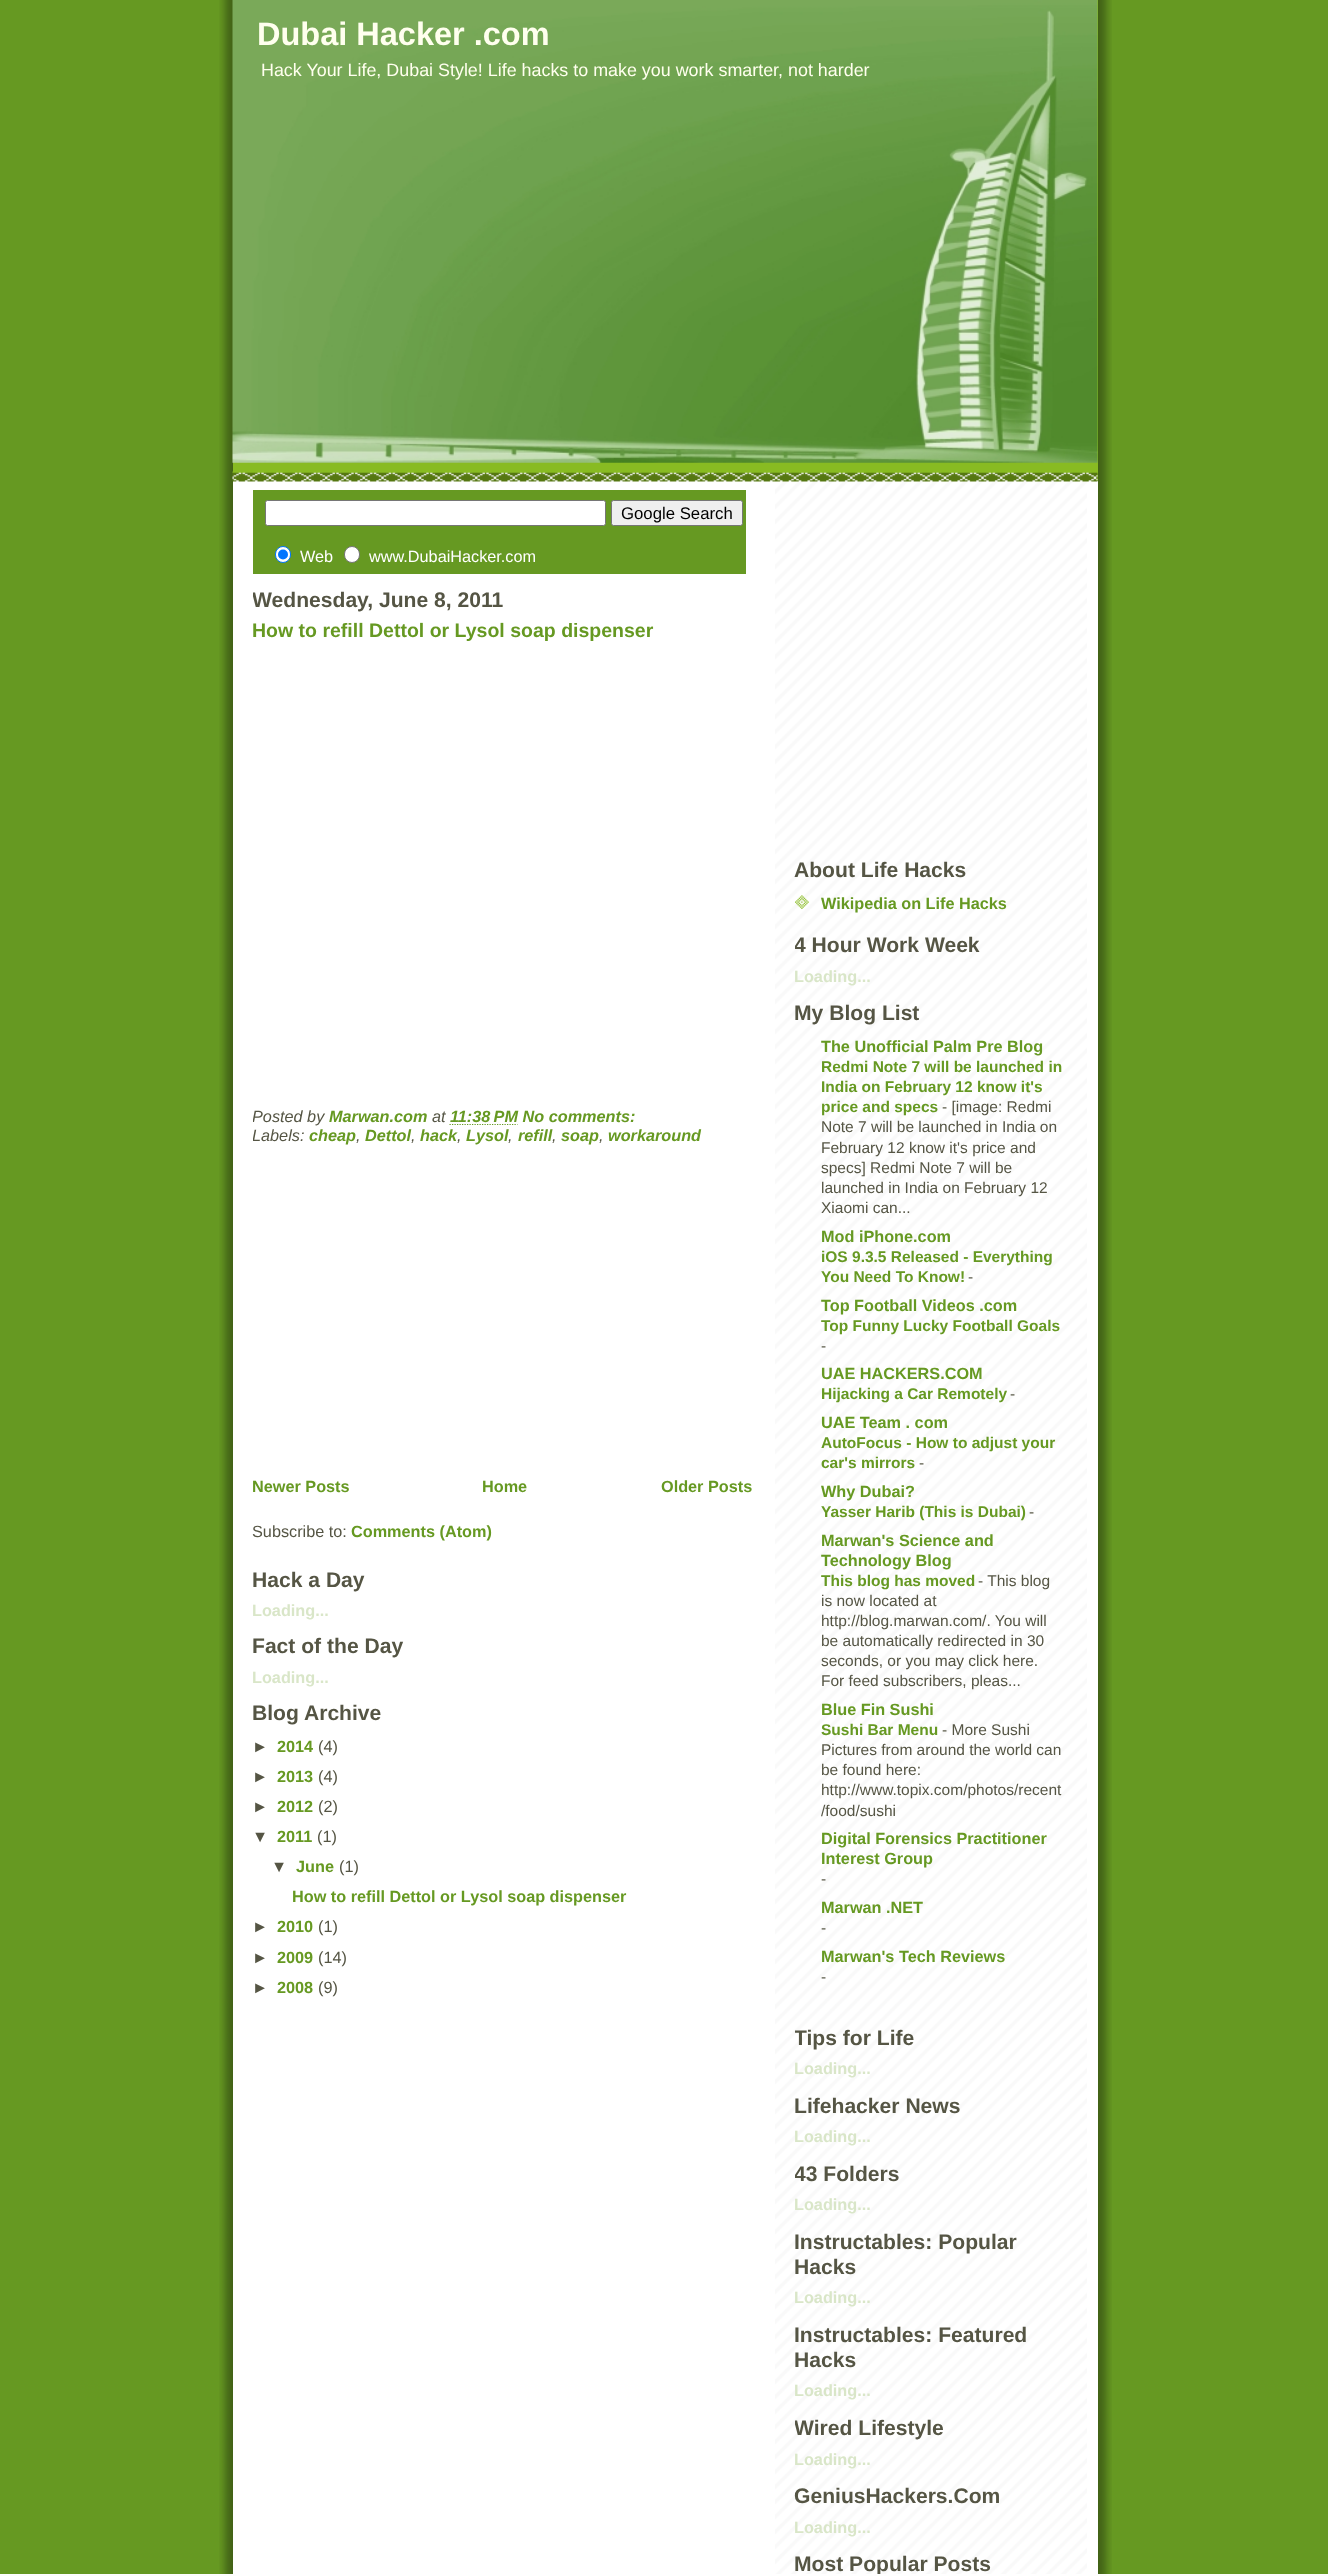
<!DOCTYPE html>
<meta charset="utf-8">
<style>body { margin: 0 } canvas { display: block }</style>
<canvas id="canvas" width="1328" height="2574"></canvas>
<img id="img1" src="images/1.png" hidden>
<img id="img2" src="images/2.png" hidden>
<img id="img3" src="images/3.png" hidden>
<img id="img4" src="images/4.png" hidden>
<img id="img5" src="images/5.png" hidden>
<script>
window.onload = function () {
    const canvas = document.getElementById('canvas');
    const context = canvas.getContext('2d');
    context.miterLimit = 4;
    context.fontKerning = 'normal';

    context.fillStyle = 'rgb(102, 153, 34)';
    context.fillRect(0, 0, 1328, 2574);
    context.drawImage(document.getElementById('img1'), 219, 0, 893, 2574);
    context.fillStyle = 'rgb(255, 255, 255)';
    context.fillRect(233, 481, 865, 2093);
    context.drawImage(document.getElementById('img2'), 775, 481, 312, 2093);
    context.fillStyle = 'rgb(136, 187, 34)';
    context.fillRect(233, 0, 865, 481);
    context.drawImage(document.getElementById('img3'), 232, 471, 866, 11);
    context.drawImage(document.getElementById('img4'), 232, 0, 866, 463);
    context.fillStyle = 'rgb(102, 153, 34)';
    context.fillRect(253, 490, 493, 84);
    context.fillStyle = 'rgb(255, 255, 255)';
    context.beginPath();
    context.roundRect(265.5, 500.5, 340, 25, 2);
    context.fill();
    context.strokeStyle = 'rgb(118, 118, 118)';
    context.stroke();
    context.fillStyle = 'rgb(239, 239, 239)';
    context.beginPath();
    context.roundRect(611.5, 500.5, 131, 25, 2);
    context.fill();
    context.stroke();
    context.fillStyle = 'rgb(255, 255, 255)';
    context.beginPath();
    context.roundRect(275.5, 546.5, 15, 16, 7.5);
    context.fill();
    context.strokeStyle = 'rgb(0, 117, 255)';
    context.stroke();
    context.fillStyle = 'rgb(0, 117, 255)';
    context.beginPath();
    context.arc(283, 554.5, 5, 0, 2 * Math.PI);
    context.fill();
    context.fillStyle = 'rgb(255, 255, 255)';
    context.beginPath();
    context.roundRect(344.5, 546.5, 15, 16, 7.5);
    context.fill();
    context.strokeStyle = 'rgb(118, 118, 118)';
    context.stroke();
    context.beginPath();
    context.moveTo(449.5, 1124.5);
    context.lineTo(517.5, 1124.5);
    context.strokeStyle = 'rgb(102, 153, 34)';
    context.lineWidth = 1.2;
    context.setLineDash([1.25, 1.25]);
    context.stroke();
    context.drawImage(document.getElementById('img5'), 795, 895, 14, 14);
    context.font = 'bold 32.5px Liberation Sans';
    context.fillStyle = 'rgb(255, 255, 238)';
    context.fillText('Dubai Hacker .com', 257, 45);
    context.font = '17.9px Liberation Sans';
    context.fillText('Hack Your Life, Dubai Style! Life hacks to make you work smarter, not harder', 261, 76);
    context.font = '16.75px Liberation Sans';
    context.fillStyle = 'rgb(0, 0, 0)';
    context.fillText('Google Search', 621, 519);
    context.font = '16.25px Liberation Sans';
    context.fillStyle = 'rgb(255, 255, 255)';
    context.fillText('Web', 300, 562);
    context.fillText('www.DubaiHacker.com', 369, 562);
    context.save();
    context.beginPath();
    context.rect(253, 574, 500, 1431);
    context.clip();
    context.font = 'bold 21.1px Liberation Sans';
    context.fillStyle = 'rgb(85, 85, 68)';
    context.fillText('Wednesday, June 8, 2011', 252, 607);
    context.restore();
    context.font = 'bold 19.5px Liberation Sans';
    context.fillStyle = 'rgb(102, 153, 34)';
    context.fillText('How to refill Dettol or Lysol soap dispenser', 252, 637);
    context.save();
    context.beginPath();
    context.rect(253, 574, 500, 1431);
    context.clip();
    context.font = 'italic 16.25px Liberation Sans';
    context.fillStyle = 'rgb(85, 85, 68)';
    context.fillText('Posted by', 252, 1122);
    context.restore();
    context.font = 'italic bold 16.25px Liberation Sans';
    context.fillText('Marwan.com', 329, 1122);
    context.font = 'italic 16.25px Liberation Sans';
    context.fillStyle = 'rgb(85, 85, 68)';
    context.fillText('at', 432, 1122);
    context.font = 'italic bold 16.25px Liberation Sans';
    context.fillStyle = 'rgb(102, 153, 34)';
    context.fillText('11:38 PM No comments:', 450, 1122);
    context.save();
    context.beginPath();
    context.rect(253, 574, 500, 1431);
    context.clip();
    context.font = 'italic 16.25px Liberation Sans';
    context.fillStyle = 'rgb(85, 85, 68)';
    context.fillText('Labels:', 252, 1141);
    context.restore();
    context.fillText('cheap', 309, 1141);
    context.font = 'italic 16.25px Liberation Sans';
    context.fillStyle = 'rgb(85, 85, 68)';
    context.fillText(',', 356, 1141);
    context.font = 'italic bold 16.25px Liberation Sans';
    context.fillStyle = 'rgb(102, 153, 34)';
    context.fillText('Dettol', 365, 1141);
    context.font = 'italic 16.25px Liberation Sans';
    context.fillStyle = 'rgb(85, 85, 68)';
    context.fillText(',', 411, 1141);
    context.font = 'italic bold 16.25px Liberation Sans';
    context.fillStyle = 'rgb(102, 153, 34)';
    context.fillText('hack', 420, 1141);
    context.font = 'italic 16.25px Liberation Sans';
    context.fillStyle = 'rgb(85, 85, 68)';
    context.fillText(',', 457, 1141);
    context.font = 'italic bold 16.25px Liberation Sans';
    context.fillStyle = 'rgb(102, 153, 34)';
    context.fillText('Lysol', 466, 1141);
    context.font = 'italic 16.25px Liberation Sans';
    context.fillStyle = 'rgb(85, 85, 68)';
    context.fillText(',', 508, 1141);
    context.font = 'italic bold 16.25px Liberation Sans';
    context.fillStyle = 'rgb(102, 153, 34)';
    context.fillText('refill', 518, 1141);
    context.font = 'italic 16.25px Liberation Sans';
    context.fillStyle = 'rgb(85, 85, 68)';
    context.fillText(',', 552, 1141);
    context.font = 'italic bold 16.25px Liberation Sans';
    context.fillStyle = 'rgb(102, 153, 34)';
    context.fillText('soap', 561, 1141);
    context.font = 'italic 16.25px Liberation Sans';
    context.fillStyle = 'rgb(85, 85, 68)';
    context.fillText(',', 599, 1141);
    context.font = 'italic bold 16.25px Liberation Sans';
    context.fillStyle = 'rgb(102, 153, 34)';
    context.fillText('workaround', 608, 1141);
    context.font = 'bold 16.25px Liberation Sans';
    context.fillText('Newer Posts', 252, 1492);
    context.fillText('Home', 482, 1492);
    context.fillText('Older Posts', 661, 1492);
    context.font = '16.25px Liberation Sans';
    context.fillStyle = 'rgb(85, 85, 68)';
    context.fillText('Subscribe to:', 252, 1537);
    context.font = 'bold 16.25px Liberation Sans';
    context.fillStyle = 'rgb(102, 153, 34)';
    context.fillText('Comments (Atom)', 351, 1537);
    context.font = 'bold 21.1px Liberation Sans';
    context.fillStyle = 'rgb(85, 85, 68)';
    context.fillText('Hack a Day', 252, 1587);
    context.font = 'bold 16.25px Liberation Sans';
    context.fillStyle = 'rgb(217, 230, 200)';
    context.fillText('Loading...', 252, 1616);
    context.font = 'bold 21.1px Liberation Sans';
    context.fillStyle = 'rgb(85, 85, 68)';
    context.fillText('Fact of the Day', 252, 1653);
    context.font = 'bold 16.25px Liberation Sans';
    context.fillStyle = 'rgb(217, 230, 200)';
    context.fillText('Loading...', 252, 1683);
    context.font = 'bold 21.1px Liberation Sans';
    context.fillStyle = 'rgb(85, 85, 68)';
    context.fillText('Blog Archive', 252, 1720);
    context.font = 'bold 16.25px Liberation Sans';
    context.fillText('►', 252, 1752);
    context.fillStyle = 'rgb(102, 153, 34)';
    context.fillText('2014', 277, 1752);
    context.font = '16.25px Liberation Sans';
    context.fillStyle = 'rgb(85, 85, 68)';
    context.fillText('(4)', 318, 1752);
    context.font = 'bold 16.25px Liberation Sans';
    context.fillText('►', 252, 1782);
    context.fillStyle = 'rgb(102, 153, 34)';
    context.fillText('2013', 277, 1782);
    context.font = '16.25px Liberation Sans';
    context.fillStyle = 'rgb(85, 85, 68)';
    context.fillText('(4)', 318, 1782);
    context.font = 'bold 16.25px Liberation Sans';
    context.fillText('►', 252, 1812);
    context.fillStyle = 'rgb(102, 153, 34)';
    context.fillText('2012', 277, 1812);
    context.font = '16.25px Liberation Sans';
    context.fillStyle = 'rgb(85, 85, 68)';
    context.fillText('(2)', 318, 1812);
    context.font = 'bold 16.25px Liberation Sans';
    context.fillText('▼', 252, 1842);
    context.fillStyle = 'rgb(102, 153, 34)';
    context.fillText('2011', 277, 1842);
    context.font = '16.25px Liberation Sans';
    context.fillStyle = 'rgb(85, 85, 68)';
    context.fillText('(1)', 317, 1842);
    context.font = 'bold 16.25px Liberation Sans';
    context.fillText('▼', 271, 1872);
    context.fillStyle = 'rgb(102, 153, 34)';
    context.fillText('June', 296, 1872);
    context.font = '16.25px Liberation Sans';
    context.fillStyle = 'rgb(85, 85, 68)';
    context.fillText('(1)', 339, 1872);
    context.font = 'bold 16.25px Liberation Sans';
    context.fillStyle = 'rgb(102, 153, 34)';
    context.fillText('How to refill Dettol or Lysol soap dispenser', 292, 1902);
    context.fillStyle = 'rgb(85, 85, 68)';
    context.fillText('►', 252, 1932);
    context.fillStyle = 'rgb(102, 153, 34)';
    context.fillText('2010', 277, 1932);
    context.font = '16.25px Liberation Sans';
    context.fillStyle = 'rgb(85, 85, 68)';
    context.fillText('(1)', 318, 1932);
    context.font = 'bold 16.25px Liberation Sans';
    context.fillText('►', 252, 1963);
    context.fillStyle = 'rgb(102, 153, 34)';
    context.fillText('2009', 277, 1963);
    context.font = '16.25px Liberation Sans';
    context.fillStyle = 'rgb(85, 85, 68)';
    context.fillText('(14)', 318, 1963);
    context.font = 'bold 16.25px Liberation Sans';
    context.fillText('►', 252, 1993);
    context.fillStyle = 'rgb(102, 153, 34)';
    context.fillText('2008', 277, 1993);
    context.font = '16.25px Liberation Sans';
    context.fillStyle = 'rgb(85, 85, 68)';
    context.fillText('(9)', 318, 1993);
    context.font = 'bold 21.1px Liberation Sans';
    context.fillText('About Life Hacks', 794, 877);
    context.font = 'bold 16.25px Liberation Sans';
    context.fillStyle = 'rgb(102, 153, 34)';
    context.fillText('Wikipedia on Life Hacks', 821, 909);
    context.save();
    context.beginPath();
    context.rect(795, 574, 283, 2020);
    context.clip();
    context.font = 'bold 21.1px Liberation Sans';
    context.fillStyle = 'rgb(85, 85, 68)';
    context.fillText('4 Hour Work Week', 794, 952);
    context.restore();
    context.fillStyle = 'rgb(217, 230, 200)';
    context.fillText('Loading...', 794, 982);
    context.font = 'bold 21.1px Liberation Sans';
    context.fillStyle = 'rgb(85, 85, 68)';
    context.fillText('My Blog List', 794, 1020);
    context.font = 'bold 16.25px Liberation Sans';
    context.fillStyle = 'rgb(102, 153, 34)';
    context.fillText('The Unofficial Palm Pre Blog', 821, 1052);
    context.font = 'bold 15.5px Liberation Sans';
    context.fillText('Redmi Note 7 will be launched in', 821, 1072);
    context.fillText('India on February 12 know it\'s', 821, 1092);
    context.fillText('price and specs', 821, 1112);
    context.font = '15.5px Liberation Sans';
    context.fillStyle = 'rgb(85, 85, 68)';
    context.fillText('- [image: Redmi', 942, 1112);
    context.fillText('Note 7 will be launched in India on', 821, 1132);
    context.fillText('February 12 know it\'s price and', 821, 1153);
    context.fillText('specs] Redmi Note 7 will be', 821, 1173);
    context.fillText('launched in India on February 12', 821, 1193);
    context.fillText('Xiaomi can...', 821, 1213);
    context.font = 'bold 16.25px Liberation Sans';
    context.fillStyle = 'rgb(102, 153, 34)';
    context.fillText('Mod iPhone.com', 821, 1242);
    context.font = 'bold 15.5px Liberation Sans';
    context.fillText('iOS 9.3.5 Released - Everything', 821, 1262);
    context.fillText('You Need To Know!', 821, 1282);
    context.font = '15.5px Liberation Sans';
    context.fillStyle = 'rgb(85, 85, 68)';
    context.fillText('-', 968, 1282);
    context.font = 'bold 16.25px Liberation Sans';
    context.fillStyle = 'rgb(102, 153, 34)';
    context.fillText('Top Football Videos .com', 821, 1311);
    context.font = 'bold 15.5px Liberation Sans';
    context.fillText('Top Funny Lucky Football Goals', 821, 1331);
    context.font = '15.5px Liberation Sans';
    context.fillStyle = 'rgb(85, 85, 68)';
    context.fillText('-', 821, 1351);
    context.font = 'bold 16.25px Liberation Sans';
    context.fillStyle = 'rgb(102, 153, 34)';
    context.fillText('UAE HACKERS.COM', 821, 1379);
    context.font = 'bold 15.5px Liberation Sans';
    context.fillText('Hijacking a Car Remotely', 821, 1399);
    context.font = '15.5px Liberation Sans';
    context.fillStyle = 'rgb(85, 85, 68)';
    context.fillText('-', 1010, 1399);
    context.font = 'bold 16.25px Liberation Sans';
    context.fillStyle = 'rgb(102, 153, 34)';
    context.fillText('UAE Team . com', 821, 1428);
    context.font = 'bold 15.5px Liberation Sans';
    context.fillText('AutoFocus - How to adjust your', 821, 1448);
    context.fillText('car\'s mirrors', 821, 1468);
    context.font = '15.5px Liberation Sans';
    context.fillStyle = 'rgb(85, 85, 68)';
    context.fillText('-', 919, 1468);
    context.font = 'bold 16.25px Liberation Sans';
    context.fillStyle = 'rgb(102, 153, 34)';
    context.fillText('Why Dubai?', 821, 1497);
    context.font = 'bold 15.5px Liberation Sans';
    context.fillText('Yasser Harib (This is Dubai)', 821, 1517);
    context.font = '15.5px Liberation Sans';
    context.fillStyle = 'rgb(85, 85, 68)';
    context.fillText('-', 1029, 1517);
    context.font = 'bold 16.25px Liberation Sans';
    context.fillStyle = 'rgb(102, 153, 34)';
    context.fillText('Marwan\'s Science and', 821, 1546);
    context.fillText('Technology Blog', 821, 1566);
    context.font = 'bold 15.5px Liberation Sans';
    context.fillText('This blog has moved', 821, 1586);
    context.font = '15.5px Liberation Sans';
    context.fillStyle = 'rgb(85, 85, 68)';
    context.fillText('- This blog', 978, 1586);
    context.fillText('is now located at', 821, 1606);
    context.fillText('http://blog.marwan.com/. You will', 821, 1626);
    context.fillText('be automatically redirected in 30', 821, 1646);
    context.fillText('seconds, or you may click here.', 821, 1666);
    context.fillText('For feed subscribers, pleas...', 821, 1686);
    context.font = 'bold 16.25px Liberation Sans';
    context.fillStyle = 'rgb(102, 153, 34)';
    context.fillText('Blue Fin Sushi', 821, 1715);
    context.font = 'bold 15.5px Liberation Sans';
    context.fillText('Sushi Bar Menu', 821, 1735);
    context.font = '15.5px Liberation Sans';
    context.fillStyle = 'rgb(85, 85, 68)';
    context.fillText('- More Sushi', 942, 1735);
    context.fillText('Pictures from around the world can', 821, 1755);
    context.fillText('be found here:', 821, 1775);
    context.fillText('http://www.topix.com/photos/recent', 821, 1795);
    context.fillText('/food/sushi', 821, 1816);
    context.font = 'bold 16.25px Liberation Sans';
    context.fillStyle = 'rgb(102, 153, 34)';
    context.fillText('Digital Forensics Practitioner', 821, 1844);
    context.fillText('Interest Group', 821, 1864);
    context.font = '15.5px Liberation Sans';
    context.fillStyle = 'rgb(85, 85, 68)';
    context.fillText('-', 821, 1884);
    context.font = 'bold 16.25px Liberation Sans';
    context.fillStyle = 'rgb(102, 153, 34)';
    context.fillText('Marwan .NET', 821, 1913);
    context.font = '15.5px Liberation Sans';
    context.fillStyle = 'rgb(85, 85, 68)';
    context.fillText('-', 821, 1933);
    context.font = 'bold 16.25px Liberation Sans';
    context.fillStyle = 'rgb(102, 153, 34)';
    context.fillText('Marwan\'s Tech Reviews', 821, 1962);
    context.font = '15.5px Liberation Sans';
    context.fillStyle = 'rgb(85, 85, 68)';
    context.fillText('-', 821, 1982);
    context.save();
    context.beginPath();
    context.rect(795, 574, 283, 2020);
    context.clip();
    context.font = 'bold 21.1px Liberation Sans';
    context.fillText('Tips for Life', 794, 2045);
    context.restore();
    context.font = 'bold 16.25px Liberation Sans';
    context.fillStyle = 'rgb(217, 230, 200)';
    context.fillText('Loading...', 794, 2074);
    context.font = 'bold 21.1px Liberation Sans';
    context.fillStyle = 'rgb(85, 85, 68)';
    context.fillText('Lifehacker News', 794, 2113);
    context.font = 'bold 16.25px Liberation Sans';
    context.fillStyle = 'rgb(217, 230, 200)';
    context.fillText('Loading...', 794, 2142);
    context.save();
    context.beginPath();
    context.rect(795, 574, 283, 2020);
    context.clip();
    context.font = 'bold 21.1px Liberation Sans';
    context.fillStyle = 'rgb(85, 85, 68)';
    context.fillText('43 Folders', 794, 2181);
    context.restore();
    context.fillText('Loading...', 794, 2210);
    context.font = 'bold 21.1px Liberation Sans';
    context.fillStyle = 'rgb(85, 85, 68)';
    context.fillText('Instructables: Popular', 794, 2249);
    context.fillText('Hacks', 794, 2274);
    context.font = 'bold 16.25px Liberation Sans';
    context.fillStyle = 'rgb(217, 230, 200)';
    context.fillText('Loading...', 794, 2303);
    context.font = 'bold 21.1px Liberation Sans';
    context.fillStyle = 'rgb(85, 85, 68)';
    context.fillText('Instructables: Featured', 794, 2342);
    context.fillText('Hacks', 794, 2367);
    context.font = 'bold 16.25px Liberation Sans';
    context.fillStyle = 'rgb(217, 230, 200)';
    context.fillText('Loading...', 794, 2396);
    context.save();
    context.beginPath();
    context.rect(795, 574, 283, 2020);
    context.clip();
    context.font = 'bold 21.1px Liberation Sans';
    context.fillStyle = 'rgb(85, 85, 68)';
    context.fillText('Wired Lifestyle', 794, 2435);
    context.restore();
    context.fillText('Loading...', 794, 2465);
    context.font = 'bold 21.1px Liberation Sans';
    context.fillStyle = 'rgb(85, 85, 68)';
    context.fillText('GeniusHackers.Com', 794, 2503);
    context.font = 'bold 16.25px Liberation Sans';
    context.fillStyle = 'rgb(217, 230, 200)';
    context.fillText('Loading...', 794, 2533);
    context.font = 'bold 21.1px Liberation Sans';
    context.fillStyle = 'rgb(85, 85, 68)';
    context.fillText('Most Popular Posts', 794, 2571);
};
</script>
